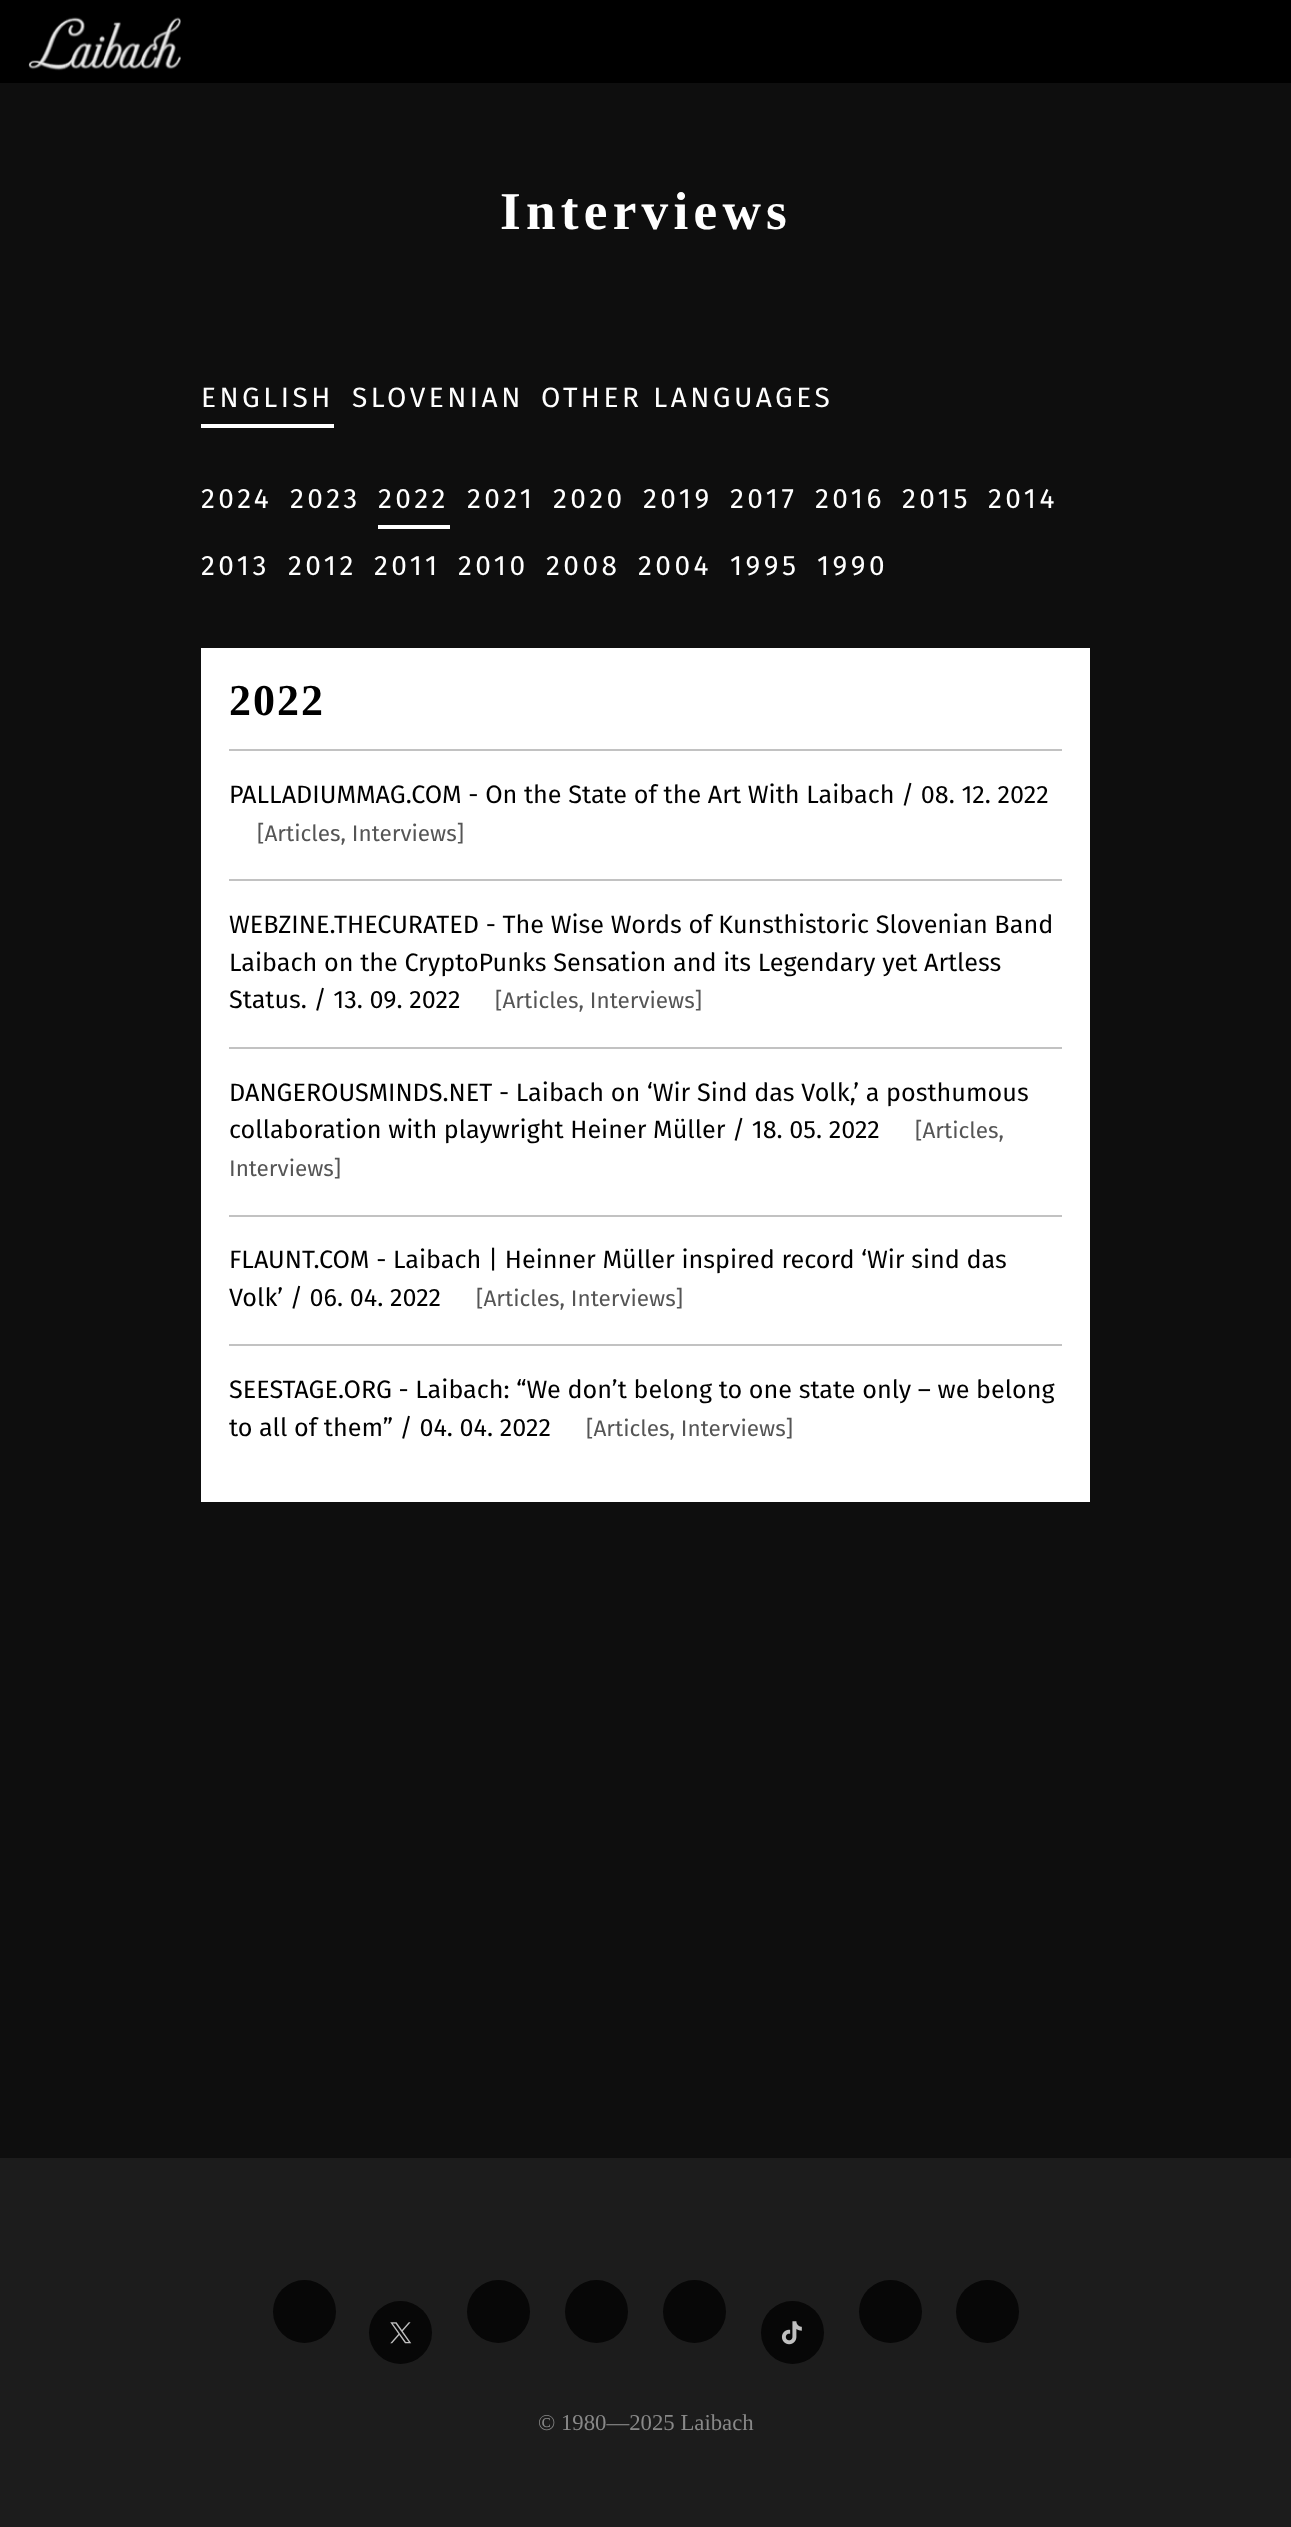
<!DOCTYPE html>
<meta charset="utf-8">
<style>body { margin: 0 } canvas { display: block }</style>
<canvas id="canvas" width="1291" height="2527"></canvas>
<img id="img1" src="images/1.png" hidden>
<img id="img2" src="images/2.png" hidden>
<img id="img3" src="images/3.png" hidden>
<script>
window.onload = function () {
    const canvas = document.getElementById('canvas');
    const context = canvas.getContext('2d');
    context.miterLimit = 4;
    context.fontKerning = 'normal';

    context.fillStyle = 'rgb(14, 14, 14)';
    context.fillRect(0, 0, 1291, 2527);
    context.fillStyle = 'rgb(0, 0, 0)';
    context.fillRect(0, 0, 1291, 83);
    context.drawImage(document.getElementById('img1'), 28, 17, 153, 54);
    context.fillStyle = 'rgb(255, 255, 255)';
    context.fillRect(201, 424, 133, 4);
    context.fillRect(378, 525, 72, 4);
    context.fillRect(201, 648, 889, 854);
    context.fillStyle = 'rgb(194, 194, 194)';
    context.fillRect(229, 749, 833, 2);
    context.fillRect(229, 879, 833, 2);
    context.fillRect(229, 1047, 833, 2);
    context.fillRect(229, 1215, 833, 2);
    context.fillRect(229, 1344, 833, 2);
    context.fillStyle = 'rgb(28, 28, 28)';
    context.fillRect(0, 2158, 1291, 369);
    context.fillStyle = 'rgb(7, 7, 7)';
    context.beginPath();
    context.arc(304.5, 2311.5, 31.5, 0, 2 * Math.PI);
    context.fill();
    context.beginPath();
    context.arc(400.5, 2332.5, 31.5, 0, 2 * Math.PI);
    context.fill();
    context.drawImage(document.getElementById('img2'), 390, 2322, 22, 22);
    context.beginPath();
    context.arc(498.5, 2311.5, 31.5, 0, 2 * Math.PI);
    context.fill();
    context.beginPath();
    context.arc(596.5, 2311.5, 31.5, 0, 2 * Math.PI);
    context.fill();
    context.beginPath();
    context.arc(694.5, 2311.5, 31.5, 0, 2 * Math.PI);
    context.fill();
    context.beginPath();
    context.arc(792.5, 2332.5, 31.5, 0, 2 * Math.PI);
    context.fill();
    context.drawImage(document.getElementById('img3'), 781, 2321, 21, 24);
    context.beginPath();
    context.arc(890.5, 2311.5, 31.5, 0, 2 * Math.PI);
    context.fill();
    context.beginPath();
    context.arc(987.5, 2311.5, 31.5, 0, 2 * Math.PI);
    context.fill();
    context.letterSpacing = '5.25px';
    context.font = 'bold 53.25px Liberation Serif';
    context.fillStyle = 'rgb(255, 255, 255)';
    context.fillText('Interviews', 500, 229);
    context.letterSpacing = '3.5px';
    context.font = '28px Fira Sans';
    context.fillText('ENGLISH', 201, 407);
    context.fillText('SLOVENIAN', 352, 407);
    context.fillText('OTHER LANGUAGES', 541, 407);
    context.fillText('2024', 201, 508);
    context.fillText('2023', 290, 508);
    context.fillText('2022', 378, 508);
    context.fillText('2021', 467, 508);
    context.fillText('2020', 553, 508);
    context.fillText('2019', 643, 508);
    context.fillText('2017', 730, 508);
    context.fillText('2016', 815, 508);
    context.fillText('2015', 902, 508);
    context.fillText('2014', 988, 508);
    context.fillText('2013', 201, 575);
    context.fillText('2012', 288, 575);
    context.fillText('2011', 374, 575);
    context.fillText('2010', 458, 575);
    context.fillText('2008', 546, 575);
    context.fillText('2004', 638, 575);
    context.fillText('1995', 730, 575);
    context.fillText('1990', 817, 575);
    context.letterSpacing = '2px';
    context.font = 'bold 44px Liberation Serif';
    context.fillStyle = 'rgb(0, 0, 0)';
    context.fillText('2022', 229, 715);
    context.letterSpacing = '0px';
    context.font = '25.2px Fira Sans';
    context.fillText('PALLADIUMMAG.COM - On the State of the Art With Laibach', 229, 803);
    context.fillText('/ 08. 12. 2022', 901, 803);
    context.font = '22.5px Fira Sans';
    context.fillStyle = 'rgb(85, 85, 85)';
    context.fillText('[Articles, Interviews]', 257, 841);
    context.font = '25.2px Fira Sans';
    context.fillStyle = 'rgb(0, 0, 0)';
    context.fillText('WEBZINE.THECURATED - The Wise Words of Kunsthistoric Slovenian Band', 229, 933);
    context.fillText('Laibach on the CryptoPunks Sensation and its Legendary yet Artless', 229, 971);
    context.fillText('Status. / 13. 09. 2022', 229, 1008);
    context.font = '22.5px Fira Sans';
    context.fillStyle = 'rgb(85, 85, 85)';
    context.fillText('[Articles, Interviews]', 495, 1008);
    context.font = '25.2px Fira Sans';
    context.fillStyle = 'rgb(0, 0, 0)';
    context.fillText('DANGEROUSMINDS.NET - Laibach on ‘Wir Sind das Volk,’ a posthumous', 229, 1101);
    context.fillText('collaboration with playwright Heiner Müller', 229, 1138);
    context.fillText('/ 18. 05. 2022', 732, 1138);
    context.font = '22.5px Fira Sans';
    context.fillStyle = 'rgb(85, 85, 85)';
    context.fillText('[Articles,', 915, 1138);
    context.fillText('Interviews]', 229, 1176);
    context.font = '25.2px Fira Sans';
    context.fillStyle = 'rgb(0, 0, 0)';
    context.fillText('FLAUNT.COM - Laibach | Heinner Müller inspired record ‘Wir sind das', 229, 1268);
    context.fillText('Volk’ / 06. 04. 2022', 229, 1306);
    context.font = '22.5px Fira Sans';
    context.fillStyle = 'rgb(85, 85, 85)';
    context.fillText('[Articles, Interviews]', 476, 1306);
    context.font = '25.2px Fira Sans';
    context.fillStyle = 'rgb(0, 0, 0)';
    context.fillText('SEESTAGE.ORG - Laibach: “We don’t belong to one state only – we belong', 229, 1398);
    context.fillText('to all of them” / 04. 04. 2022', 229, 1436);
    context.font = '22.5px Fira Sans';
    context.fillStyle = 'rgb(85, 85, 85)';
    context.fillText('[Articles, Interviews]', 586, 1436);
    context.font = '22.75px Liberation Serif';
    context.fillStyle = 'rgb(136, 136, 136)';
    context.fillText('© 1980—2025 Laibach', 538, 2430);
};
</script>
